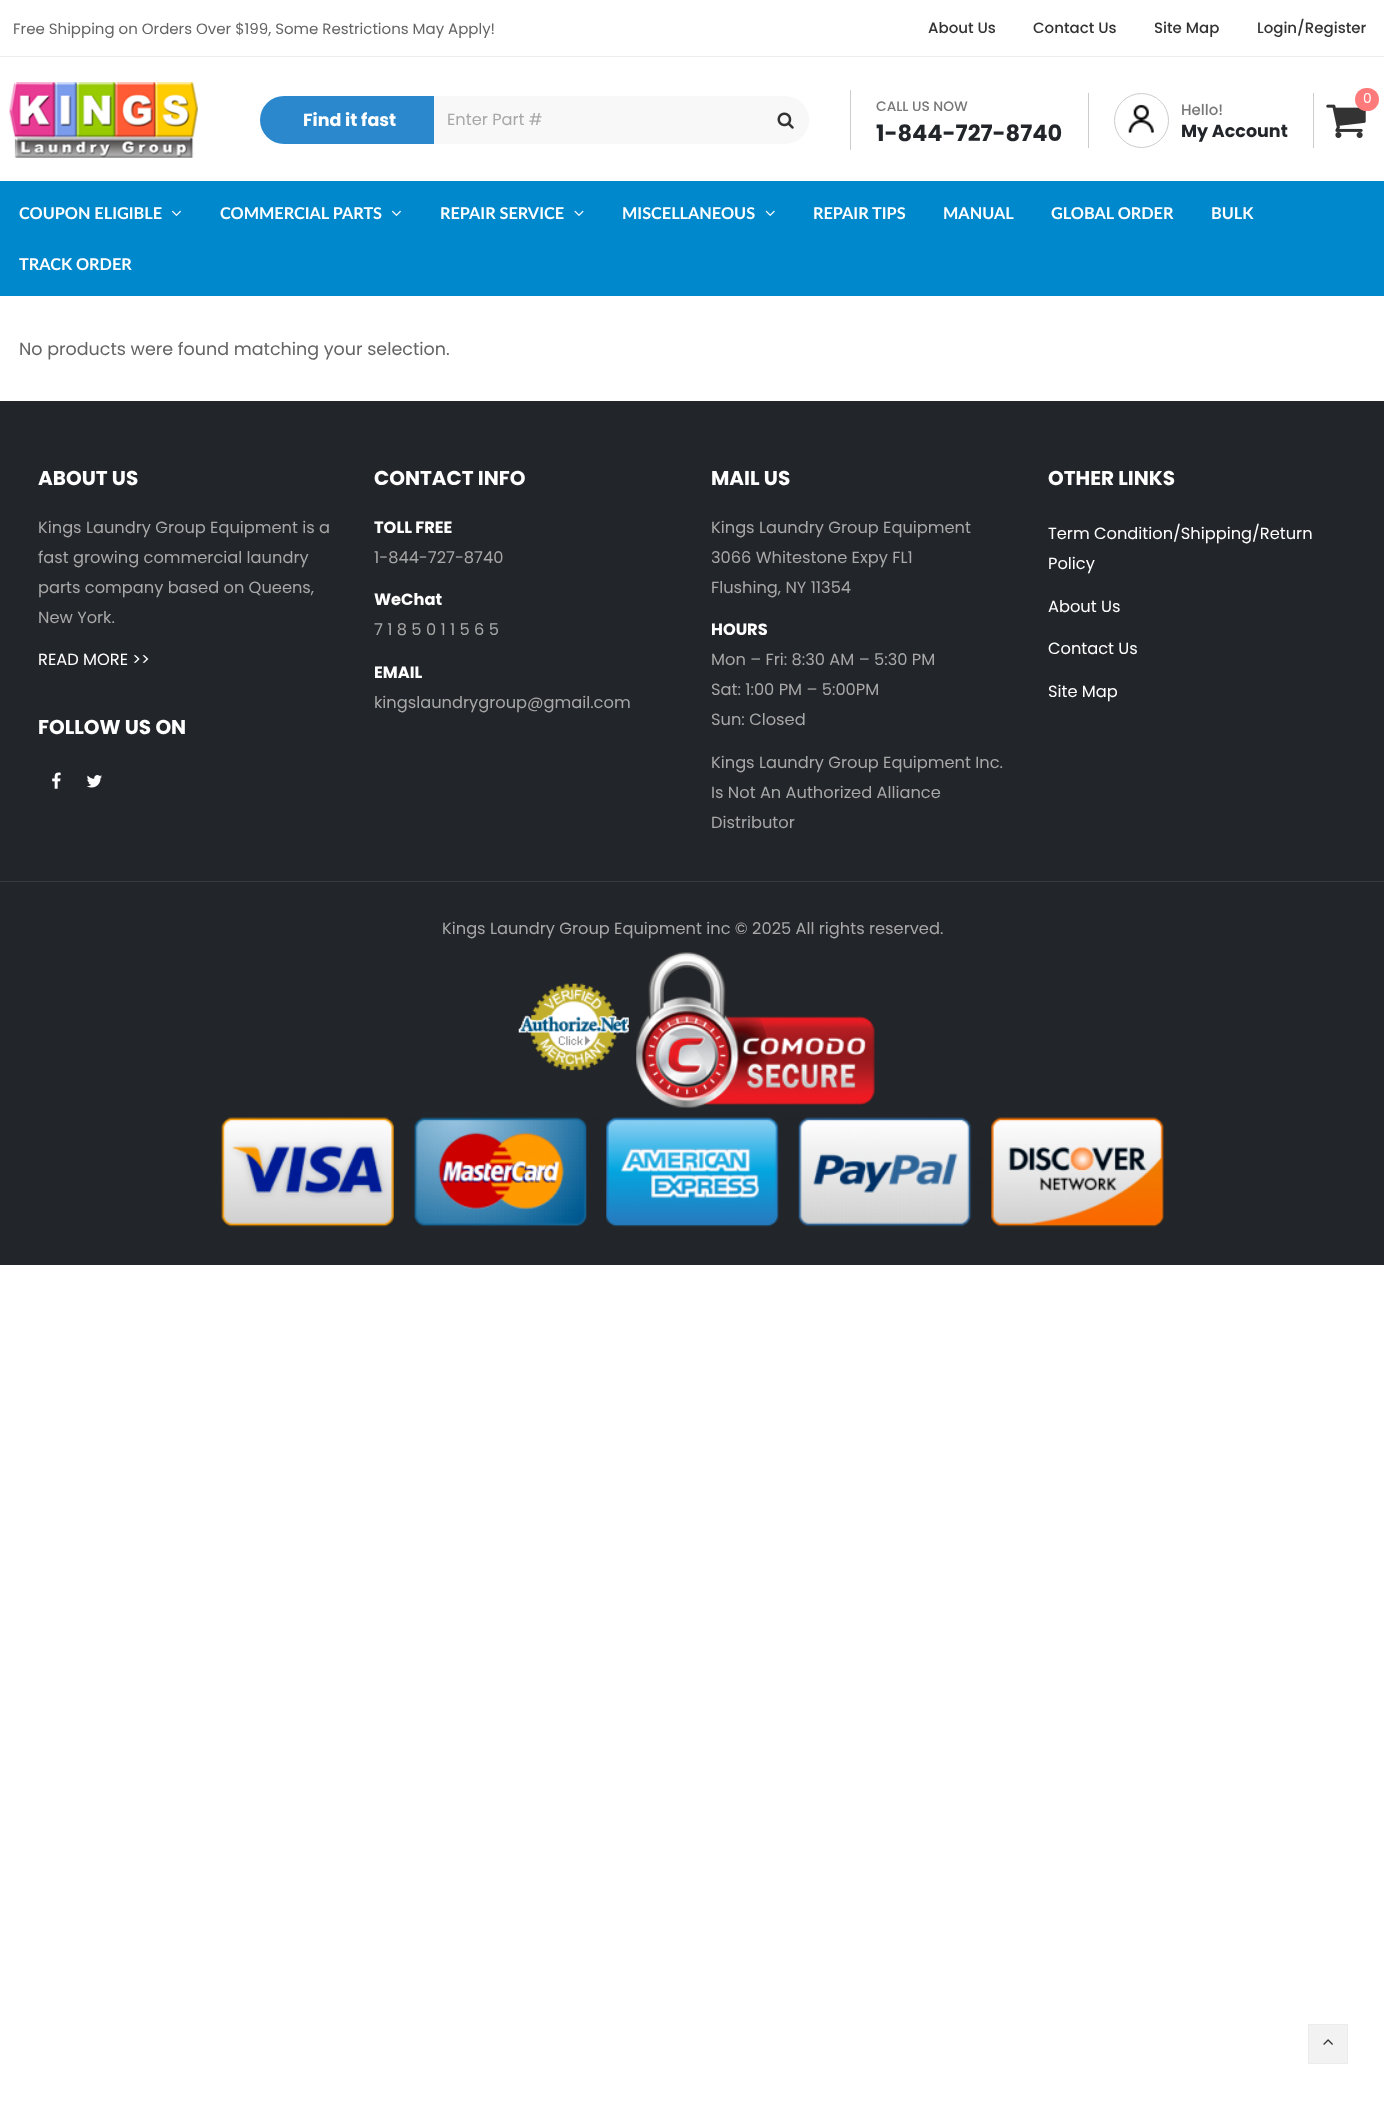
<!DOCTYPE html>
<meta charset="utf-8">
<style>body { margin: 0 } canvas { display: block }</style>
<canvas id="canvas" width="1384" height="2126"></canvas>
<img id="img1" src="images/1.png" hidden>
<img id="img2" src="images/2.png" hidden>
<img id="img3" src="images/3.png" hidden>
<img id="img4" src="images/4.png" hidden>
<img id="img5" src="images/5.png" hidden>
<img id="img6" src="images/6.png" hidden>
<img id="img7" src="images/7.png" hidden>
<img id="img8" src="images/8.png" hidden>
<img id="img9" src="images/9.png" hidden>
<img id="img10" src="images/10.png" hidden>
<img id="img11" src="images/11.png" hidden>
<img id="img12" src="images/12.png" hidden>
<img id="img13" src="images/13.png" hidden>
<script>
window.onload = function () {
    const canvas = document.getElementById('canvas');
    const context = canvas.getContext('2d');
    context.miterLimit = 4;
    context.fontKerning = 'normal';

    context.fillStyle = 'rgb(255, 255, 255)';
    context.fillRect(0, 0, 1384, 2126);
    context.fillStyle = 'rgb(237, 237, 237)';
    context.fillRect(0, 56, 1384, 1);
    context.drawImage(document.getElementById('img1'), 9, 82, 189, 76);
    context.drawImage(document.getElementById('img2'), 1326, 104, 40, 34);
    context.fillStyle = 'rgb(255, 123, 123)';
    context.beginPath();
    context.roundRect(1355, 88, 24, 23, 11.5);
    context.fill();
    context.fillStyle = 'rgb(43, 136, 204)';
    context.beginPath();
    context.roundRect(260, 96, 174, 48, [24, 0, 0, 24]);
    context.fill();
    context.fillStyle = 'rgb(248, 248, 248)';
    context.beginPath();
    context.roundRect(434, 96, 375, 48, [0, 24, 24, 0]);
    context.fill();
    context.drawImage(document.getElementById('img3'), 777, 112, 17, 17);
    context.fillStyle = 'rgb(204, 204, 204)';
    context.fillRect(850, 90, 1, 60);
    context.fillRect(1313, 93, 1, 55);
    context.fillRect(1088, 93, 1, 55);
    context.beginPath();
    context.arc(1141.5, 120.5, 27, 0, 2 * Math.PI);
    context.strokeStyle = 'rgb(204, 204, 204)';
    context.stroke();
    context.drawImage(document.getElementById('img4'), 1128, 104, 26, 29);
    context.fillStyle = 'rgb(0, 136, 204)';
    context.fillRect(0, 181, 1384, 115);
    context.drawImage(document.getElementById('img5'), 172, 210, 9, 6);
    context.drawImage(document.getElementById('img5'), 392, 210, 9, 6);
    context.drawImage(document.getElementById('img6'), 574, 210, 10, 6);
    context.drawImage(document.getElementById('img7'), 765, 210, 10, 6);
    context.fillStyle = 'rgb(34, 37, 41)';
    context.fillRect(0, 401, 1384, 864);
    context.drawImage(document.getElementById('img8'), 52, 772, 9, 17);
    context.drawImage(document.getElementById('img9'), 86, 775, 16, 13);
    context.fillStyle = 'rgb(56, 59, 62)';
    context.fillRect(0, 881, 1384, 1);
    context.drawImage(document.getElementById('img10'), 518, 983, 111, 88);
    context.drawImage(document.getElementById('img11'), 636, 952, 239, 156);
    context.drawImage(document.getElementById('img12'), 221, 1117, 943, 110);
    context.fillStyle = 'rgb(242, 242, 242)';
    context.beginPath();
    context.rect(1308.5, 2024.5, 39, 39);
    context.fill();
    context.strokeStyle = 'rgb(235, 235, 235)';
    context.stroke();
    context.drawImage(document.getElementById('img13'), 1323, 2039, 10, 6);
    context.font = '15px Poppins';
    context.fillStyle = 'rgb(100, 100, 100)';
    context.fillText('Free Shipping on Orders Over $199, Some Restrictions May Apply!', 13, 34);
    context.font = '500 15px Poppins';
    context.fillStyle = 'rgb(51, 51, 51)';
    context.fillText('About Us', 928, 33);
    context.fillText('Contact Us', 1033, 33);
    context.fillText('Site Map', 1154, 33);
    context.fillText('Login/Register', 1257, 33);
    context.font = '13.75px Poppins';
    context.fillStyle = 'rgb(255, 255, 255)';
    context.fillText('0', 1363, 103);
    context.font = 'bold 17.5px Poppins';
    context.fillText('Find it fast', 303, 126);
    context.font = '16.25px Poppins';
    context.fillStyle = 'rgb(168, 168, 168)';
    context.fillText('Enter Part #', 447, 125);
    context.font = '500 13.75px Poppins';
    context.fillStyle = 'rgb(119, 119, 119)';
    context.fillText('CALL US NOW', 876, 111);
    context.font = 'bold 22.5px Poppins';
    context.fillStyle = 'rgb(34, 37, 41)';
    context.fillText('1-844-727-8740', 876, 141);
    context.font = '500 15px Poppins';
    context.fillStyle = 'rgb(119, 119, 119)';
    context.fillText('Hello!', 1181, 115);
    context.font = 'bold 17.5px Poppins';
    context.fillStyle = 'rgb(34, 37, 41)';
    context.fillText('My Account', 1181, 137);
    context.font = 'bold 16.25px Lato';
    context.fillStyle = 'rgb(255, 255, 255)';
    context.fillText('COUPON ELIGIBLE', 19, 219);
    context.fillText('COMMERCIAL PARTS', 220, 219);
    context.fillText('REPAIR SERVICE', 440, 219);
    context.fillText('MISCELLANEOUS', 622, 219);
    context.fillText('REPAIR TIPS', 813, 219);
    context.fillText('MANUAL', 943, 219);
    context.fillText('GLOBAL ORDER', 1051, 219);
    context.fillText('BULK', 1211, 219);
    context.fillText('TRACK ORDER', 19, 270);
    context.font = '17.5px Poppins';
    context.fillStyle = 'rgb(100, 100, 100)';
    context.fillText('No products were found matching your selection.', 19, 355);
    context.font = 'bold 20px Poppins';
    context.fillStyle = 'rgb(255, 255, 255)';
    context.fillText('ABOUT US', 38, 485);
    context.font = '16.25px Poppins';
    context.fillStyle = 'rgb(168, 168, 168)';
    context.fillText('Kings Laundry Group Equipment is a', 38, 533);
    context.fillText('fast growing commercial laundry', 38, 563);
    context.fillText('parts company based on Queens,', 38, 593);
    context.fillText('New York.', 38, 623);
    context.fillStyle = 'rgb(255, 255, 255)';
    context.fillText('READ MORE >>', 38, 665);
    context.font = 'bold 20px Poppins';
    context.fillText('FOLLOW US ON', 38, 734);
    context.fillText('CONTACT INFO', 374, 485);
    context.font = 'bold 16.25px Poppins';
    context.fillText('TOLL FREE', 374, 533);
    context.font = '16.25px Poppins';
    context.fillStyle = 'rgb(168, 168, 168)';
    context.fillText('1-844-727-8740', 374, 563);
    context.font = 'bold 16.25px Poppins';
    context.fillStyle = 'rgb(255, 255, 255)';
    context.fillText('WeChat', 374, 605);
    context.font = '16.25px Poppins';
    context.fillStyle = 'rgb(168, 168, 168)';
    context.fillText('7 1 8 5 0 1 1 5 6 5', 374, 635);
    context.font = 'bold 16.25px Poppins';
    context.fillStyle = 'rgb(255, 255, 255)';
    context.fillText('EMAIL', 374, 678);
    context.font = '16.25px Poppins';
    context.fillStyle = 'rgb(168, 168, 168)';
    context.fillText('kingslaundrygroup@gmail.com', 374, 708);
    context.font = 'bold 20px Poppins';
    context.fillStyle = 'rgb(255, 255, 255)';
    context.fillText('MAIL US', 711, 485);
    context.font = '16.25px Poppins';
    context.fillStyle = 'rgb(168, 168, 168)';
    context.fillText('Kings Laundry Group Equipment', 711, 533);
    context.fillText('3066 Whitestone Expy FL1', 711, 563);
    context.fillText('Flushing, NY 11354', 711, 593);
    context.font = 'bold 16.25px Poppins';
    context.fillStyle = 'rgb(255, 255, 255)';
    context.fillText('HOURS', 711, 635);
    context.font = '16.25px Poppins';
    context.fillStyle = 'rgb(168, 168, 168)';
    context.fillText('Mon – Fri: 8:30 AM – 5:30 PM', 711, 665);
    context.fillText('Sat: 1:00 PM – 5:00PM', 711, 695);
    context.fillText('Sun: Closed', 711, 725);
    context.fillText('Kings Laundry Group Equipment Inc.', 711, 768);
    context.fillText('Is Not An Authorized Alliance', 711, 798);
    context.fillText('Distributor', 711, 828);
    context.font = 'bold 20px Poppins';
    context.fillStyle = 'rgb(255, 255, 255)';
    context.fillText('OTHER LINKS', 1048, 485);
    context.font = '16.25px Poppins';
    context.fillText('Term Condition/Shipping/Return', 1048, 539);
    context.fillText('Policy', 1048, 569);
    context.fillText('About Us', 1048, 612);
    context.fillText('Contact Us', 1048, 654);
    context.fillText('Site Map', 1048, 697);
    context.fillStyle = 'rgb(168, 168, 168)';
    context.fillText('Kings Laundry Group Equipment inc © 2025 All rights reserved.', 442, 934);
};
</script>
